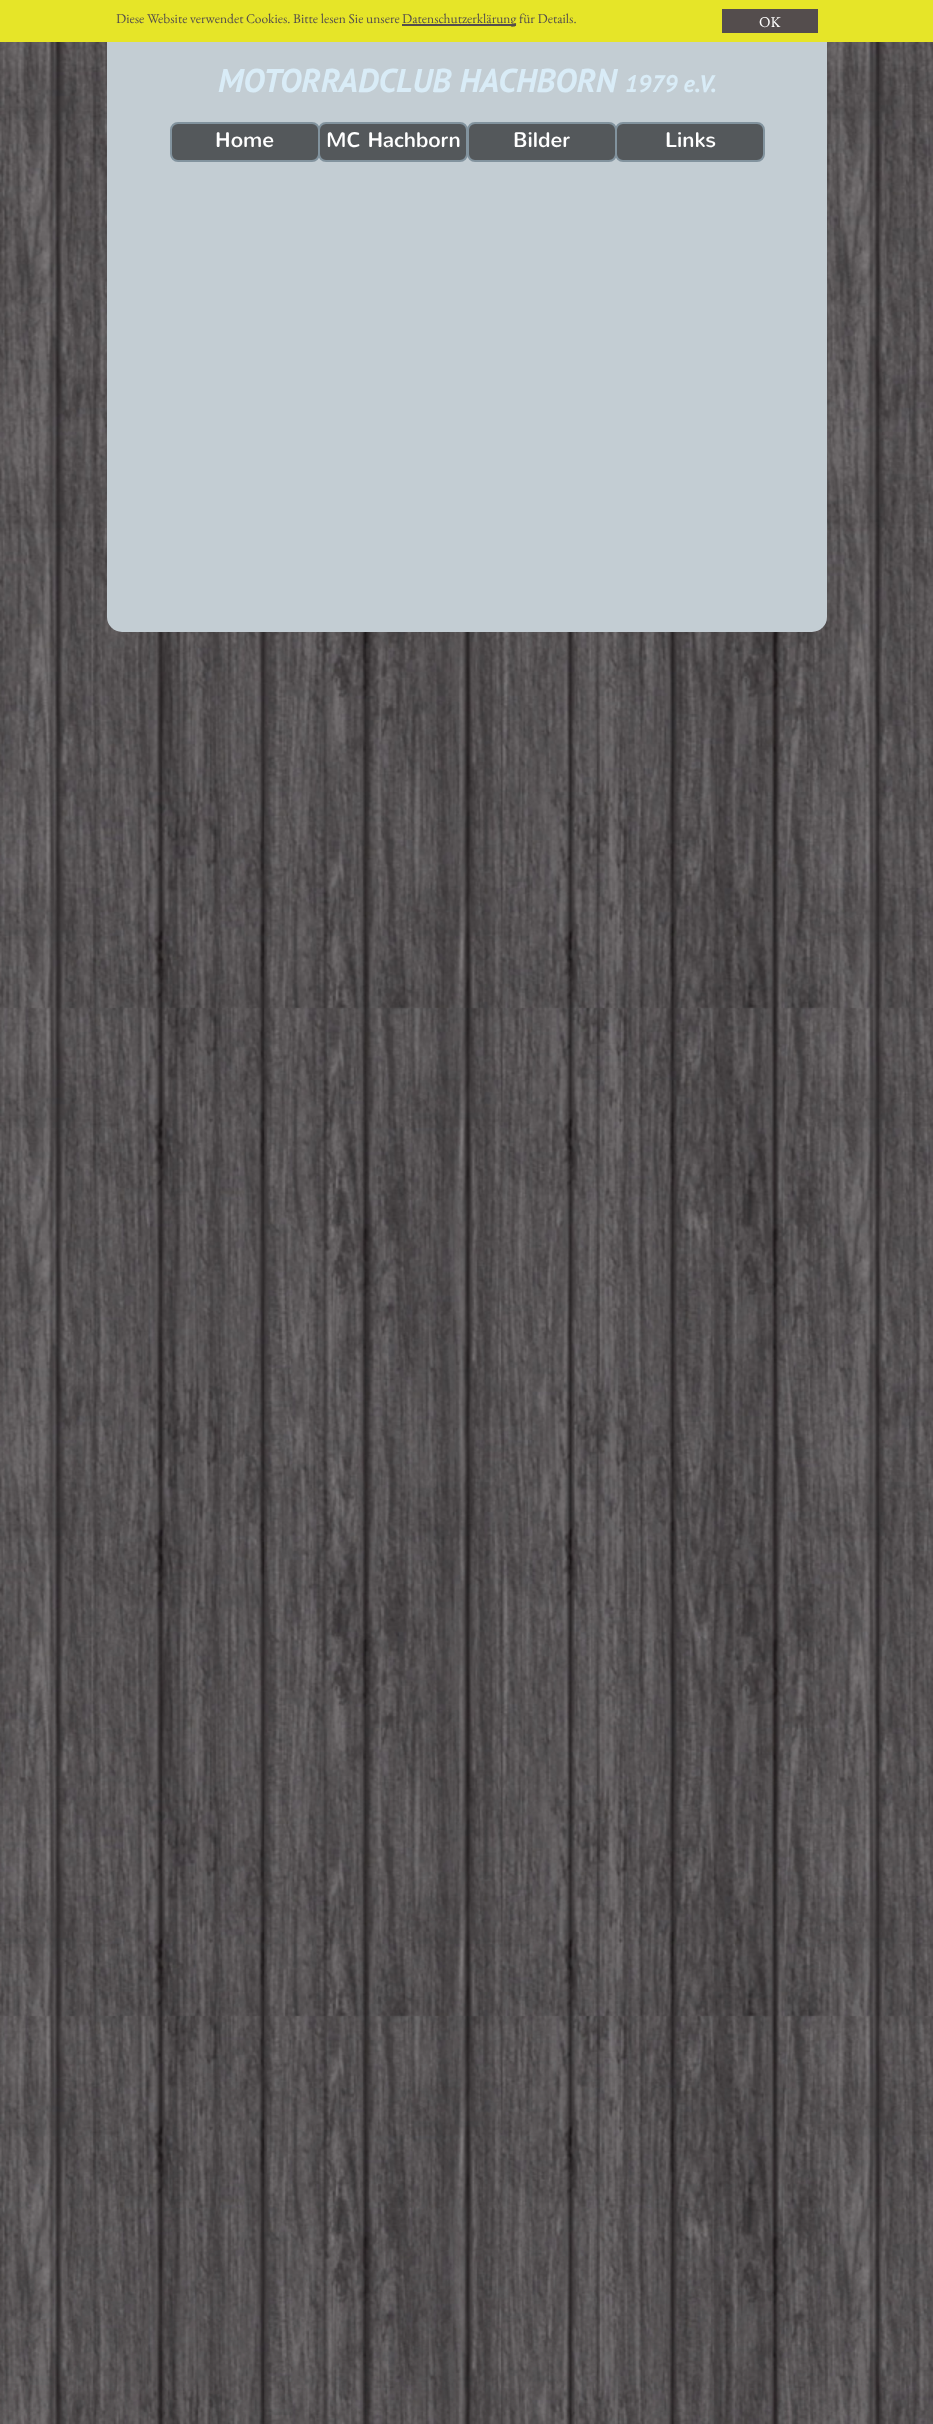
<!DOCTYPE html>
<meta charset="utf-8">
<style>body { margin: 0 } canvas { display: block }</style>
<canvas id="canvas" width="933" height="2424"></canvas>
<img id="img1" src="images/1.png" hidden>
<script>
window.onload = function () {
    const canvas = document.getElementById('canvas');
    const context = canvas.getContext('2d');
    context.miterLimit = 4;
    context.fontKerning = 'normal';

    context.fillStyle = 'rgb(255, 255, 255)';
    context.fillRect(0, 0, 933, 2424);
    context.drawImage(document.getElementById('img1'), 0, 42, 933, 2382);
    context.fillStyle = 'rgb(195, 205, 211)';
    context.beginPath();
    context.roundRect(107, 0, 720, 632, 15);
    context.fill();
    context.fillStyle = 'rgb(230, 229, 40)';
    context.fillRect(0, 0, 933, 42);
    context.fillStyle = 'rgb(84, 77, 77)';
    context.fillRect(402, 24, 114, 2);
    context.fillRect(722, 9, 96, 24);
    context.fillStyle = 'rgb(84, 88, 91)';
    context.beginPath();
    context.roundRect(171, 123, 148, 38, 7);
    context.fill();
    context.strokeStyle = 'rgb(130, 147, 158)';
    context.lineWidth = 2;
    context.stroke();
    context.fillStyle = 'rgba(0, 0, 0, 0.57)';
    context.beginPath();
    context.roundRect(319, 123, 148, 38, 7);
    context.fill();
    context.stroke();
    context.beginPath();
    context.roundRect(468, 123, 148, 38, 7);
    context.fill();
    context.stroke();
    context.beginPath();
    context.roundRect(616, 123, 148, 38, 7);
    context.fill();
    context.stroke();
    context.font = '13.5px EB Garamond';
    context.fillStyle = 'rgb(84, 77, 77)';
    context.fillText('Diese Website verwendet Cookies. Bitte lesen Sie unsere', 116, 23);
    context.fillText('Datenschutzerklärung für Details.', 402, 23);
    context.font = '15px EB Garamond';
    context.fillStyle = 'rgb(255, 255, 255)';
    context.fillText('OK', 759, 27);
    context.font = 'italic bold 33px PT Sans';
    context.fillStyle = 'rgb(217, 236, 247)';
    context.fillText('MOTORRADCLUB HACHBORN', 218, 92);
    context.font = 'italic bold 24px PT Sans';
    context.fillText('1979 e.V.', 625, 92);
    context.font = '21px Nunito';
    context.fillStyle = 'rgb(255, 255, 255)';
    context.fillText('Home', 215, 147);
    context.fillText('MC Hachborn', 326, 147);
    context.fillText('Bilder', 513, 147);
    context.fillText('Links', 665, 147);
};
</script>
